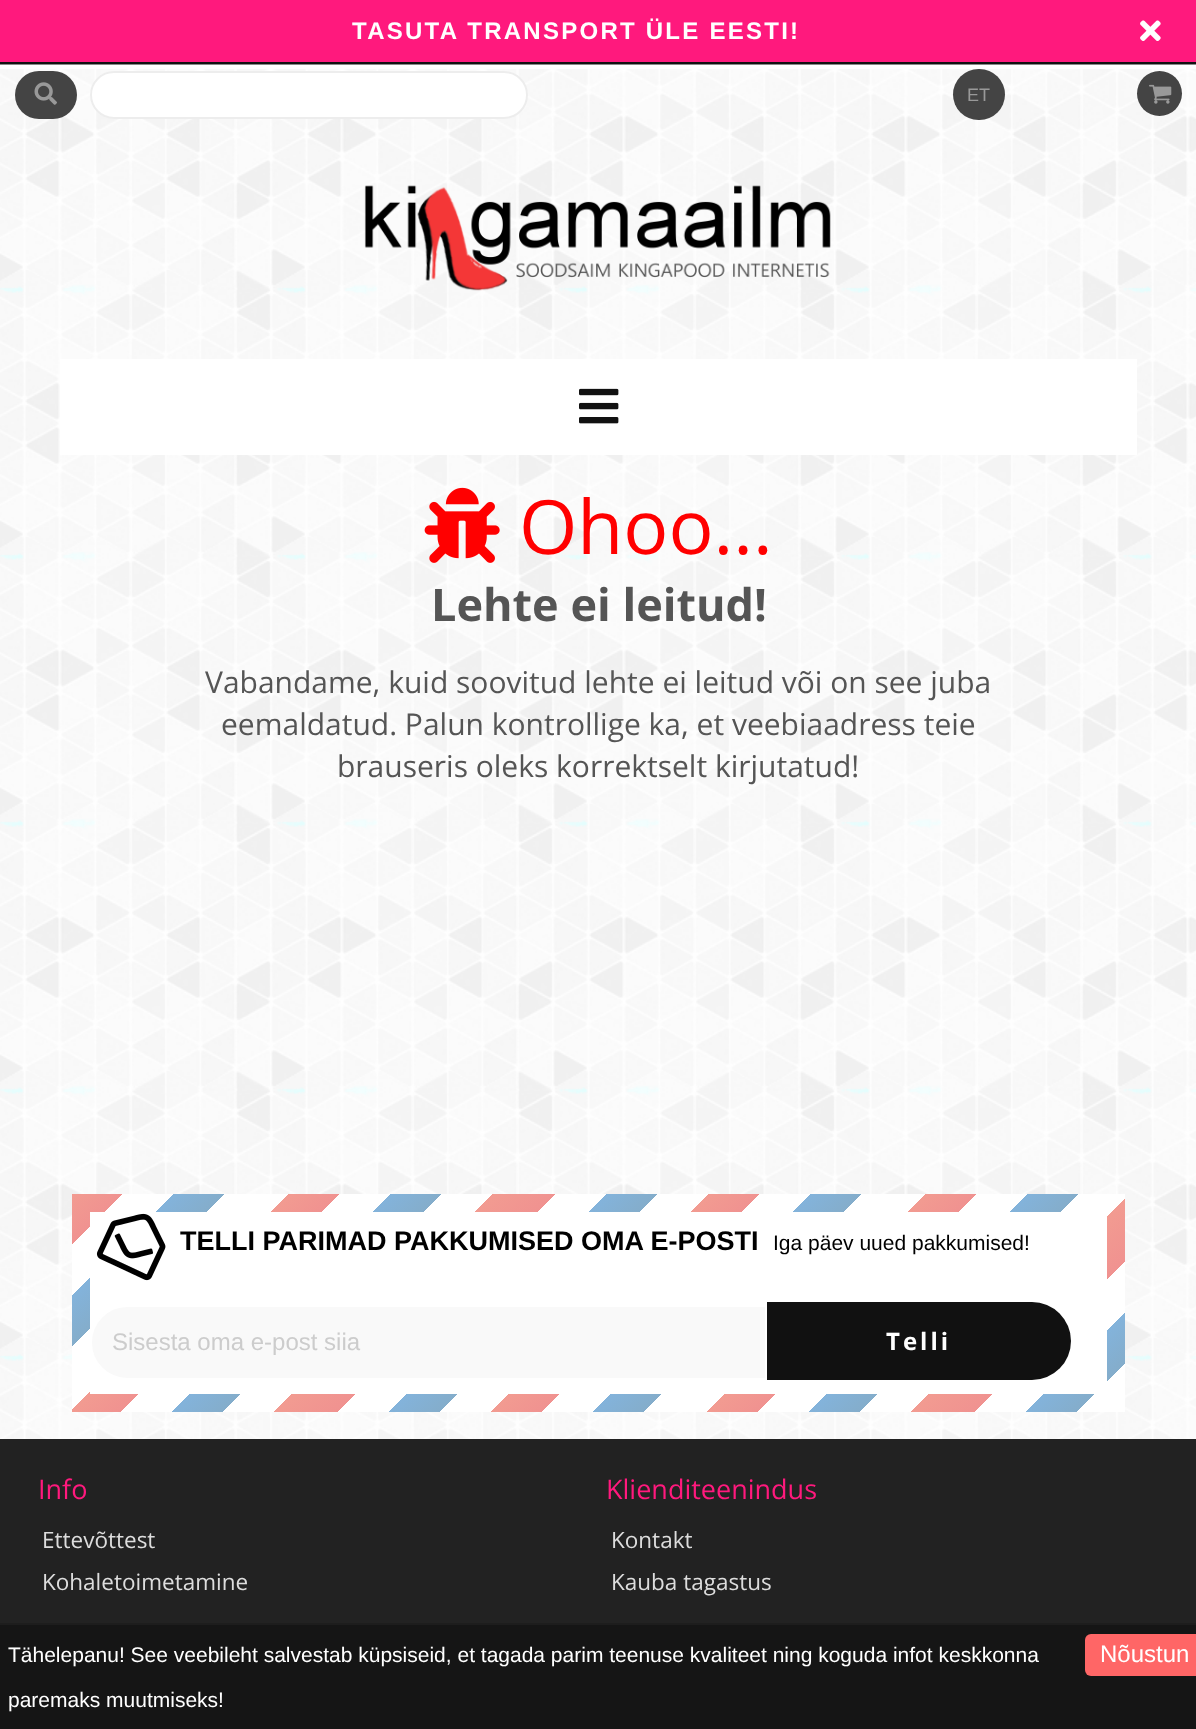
<!DOCTYPE html>
<meta charset="utf-8">
<style>body { margin: 0 } canvas { display: block }</style>
<canvas id="canvas" width="1196" height="1729"></canvas>
<img id="img1" src="images/1.png" hidden>
<img id="img2" src="images/2.png" hidden>
<img id="img3" src="images/3.png" hidden>
<img id="img4" src="images/4.png" hidden>
<img id="img5" src="images/5.png" hidden>
<img id="img6" src="images/6.png" hidden>
<img id="img7" src="images/7.png" hidden>
<img id="img8" src="images/8.png" hidden>
<img id="img9" src="images/9.png" hidden>
<script>
window.onload = function () {
    const canvas = document.getElementById('canvas');
    const context = canvas.getContext('2d');
    context.miterLimit = 4;
    context.fontKerning = 'normal';
    let gradient;

    context.fillStyle = 'rgb(255, 255, 255)';
    context.fillRect(0, 0, 1196, 1729);
    context.drawImage(document.getElementById('img1'), 0, 69, 1196, 1370);
    context.fillStyle = 'rgb(255, 25, 125)';
    context.fillRect(0, 0, 1196, 62);
    context.drawImage(document.getElementById('img2'), 1140, 20, 21, 21);
    context.drawImage(document.getElementById('img3'), 0, 62, 1196, 7);
    context.fillStyle = 'rgb(68, 68, 68)';
    context.beginPath();
    context.roundRect(15, 71, 62, 48, 24);
    context.fill();
    context.drawImage(document.getElementById('img4'), 34, 82, 23, 23);
    context.fillStyle = 'rgb(255, 255, 255)';
    context.beginPath();
    context.roundRect(90, 71, 438, 48, 24);
    context.fill();
    context.beginPath();
    context.roundRect(91, 72, 436, 46, 23);
    context.strokeStyle = 'rgba(0, 0, 0, 0.07)';
    context.lineWidth = 2;
    context.stroke();
    context.fillStyle = 'rgb(68, 68, 68)';
    context.beginPath();
    context.roundRect(953, 69, 52, 51, 25.5);
    context.fill();
    context.beginPath();
    context.arc(1159.5, 93.5, 22.5, 0, 2 * Math.PI);
    context.fill();
    context.drawImage(document.getElementById('img5'), 1149, 84, 23, 20);
    context.drawImage(document.getElementById('img6'), 364, 185, 467, 106);
    context.fillStyle = 'rgb(255, 255, 255)';
    context.fillRect(60, 359, 1077, 96);
    context.drawImage(document.getElementById('img7'), 579, 388, 40, 36);
    context.drawImage(document.getElementById('img8'), 424, 487, 76, 76);
    context.fillStyle = 'rgb(34, 34, 34)';
    context.fillRect(0, 1439, 1196, 290);
    context.fillStyle = 'rgba(20, 20, 20, 0.9)';
    context.fillRect(0, 1623, 1196, 106);
    context.fillStyle = 'rgba(30, 30, 30, 0.9)';
    context.fillRect(0, 1623, 1196, 2);
    context.fillStyle = 'rgb(255, 102, 102)';
    context.beginPath();
    context.roundRect(1085, 1634, 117, 42, 6);
    context.fill();
    gradient = context.createLinearGradient(281, 985, 917, 1622);
    gradient.addColorStop(0, 'rgb(242, 155, 145)');
    gradient.addColorStop(0.04, 'rgb(240, 146, 144)');
    gradient.addColorStop(0.04, 'rgb(255, 255, 255)');
    gradient.addColorStop(0.08, 'rgb(255, 255, 255)');
    gradient.addColorStop(0.08, 'rgb(131, 179, 219)');
    gradient.addColorStop(0.12, 'rgb(132, 173, 203)');
    gradient.addColorStop(0.12, 'rgb(255, 255, 255)');
    gradient.addColorStop(0.17, 'rgb(255, 255, 255)');
    gradient.addColorStop(0.17, 'rgb(242, 155, 145)');
    gradient.addColorStop(0.21, 'rgb(240, 146, 144)');
    gradient.addColorStop(0.21, 'rgb(255, 255, 255)');
    gradient.addColorStop(0.25, 'rgb(255, 255, 255)');
    gradient.addColorStop(0.25, 'rgb(131, 179, 219)');
    gradient.addColorStop(0.29, 'rgb(132, 173, 203)');
    gradient.addColorStop(0.29, 'rgb(255, 255, 255)');
    gradient.addColorStop(0.33, 'rgb(255, 255, 255)');
    gradient.addColorStop(0.33, 'rgb(242, 155, 145)');
    gradient.addColorStop(0.38, 'rgb(240, 146, 144)');
    gradient.addColorStop(0.38, 'rgb(255, 255, 255)');
    gradient.addColorStop(0.42, 'rgb(255, 255, 255)');
    gradient.addColorStop(0.42, 'rgb(131, 179, 219)');
    gradient.addColorStop(0.46, 'rgb(132, 173, 203)');
    gradient.addColorStop(0.46, 'rgb(255, 255, 255)');
    gradient.addColorStop(0.5, 'rgb(255, 255, 255)');
    gradient.addColorStop(0.5, 'rgb(242, 155, 145)');
    gradient.addColorStop(0.54, 'rgb(240, 146, 144)');
    gradient.addColorStop(0.54, 'rgb(255, 255, 255)');
    gradient.addColorStop(0.58, 'rgb(255, 255, 255)');
    gradient.addColorStop(0.58, 'rgb(131, 179, 219)');
    gradient.addColorStop(0.62, 'rgb(132, 173, 203)');
    gradient.addColorStop(0.62, 'rgb(255, 255, 255)');
    gradient.addColorStop(0.67, 'rgb(255, 255, 255)');
    gradient.addColorStop(0.67, 'rgb(242, 155, 145)');
    gradient.addColorStop(0.71, 'rgb(240, 146, 144)');
    gradient.addColorStop(0.71, 'rgb(255, 255, 255)');
    gradient.addColorStop(0.75, 'rgb(255, 255, 255)');
    gradient.addColorStop(0.75, 'rgb(131, 179, 219)');
    gradient.addColorStop(0.79, 'rgb(132, 173, 203)');
    gradient.addColorStop(0.79, 'rgb(255, 255, 255)');
    gradient.addColorStop(0.83, 'rgb(255, 255, 255)');
    gradient.addColorStop(0.83, 'rgb(242, 155, 145)');
    gradient.addColorStop(0.88, 'rgb(240, 146, 144)');
    gradient.addColorStop(0.88, 'rgb(255, 255, 255)');
    gradient.addColorStop(0.92, 'rgb(255, 255, 255)');
    gradient.addColorStop(0.92, 'rgb(131, 179, 219)');
    gradient.addColorStop(0.96, 'rgb(132, 173, 203)');
    gradient.addColorStop(0.96, 'rgb(255, 255, 255)');
    gradient.addColorStop(1, 'rgb(255, 255, 255)');
    context.fillStyle = gradient;
    context.fillRect(72, 1194, 1053, 218);
    context.fillStyle = 'rgb(255, 255, 255)';
    context.fillRect(90, 1212, 1017, 182);
    context.drawImage(document.getElementById('img9'), 96, 1213, 70, 68);
    context.fillStyle = 'rgb(249, 249, 249)';
    context.beginPath();
    context.roundRect(91, 1306, 675, 73, [36.5, 0, 0, 36.5]);
    context.fill();
    context.strokeStyle = 'rgb(255, 255, 255)';
    context.stroke();
    context.fillStyle = 'rgb(17, 17, 17)';
    context.beginPath();
    context.roundRect(767, 1302, 304, 78, [0, 39, 39, 0]);
    context.fill();
    context.letterSpacing = '2.25px';
    context.font = 'bold 24px Liberation Sans';
    context.fillStyle = 'rgb(255, 255, 255)';
    context.fillText('TASUTA TRANSPORT ÜLE EESTI!', 352, 39);
    context.letterSpacing = '0px';
    context.font = '18px Liberation Sans';
    context.fillStyle = 'rgb(153, 153, 153)';
    context.fillText('ET', 967, 101);
    context.font = '75px Open Sans';
    context.fillStyle = 'rgb(255, 0, 0)';
    context.fillText('Ohoo...', 519, 554);
    context.font = 'bold 45px Open Sans';
    context.fillStyle = 'rgb(85, 85, 85)';
    context.fillText('Lehte ei leitud!', 431, 621);
    context.font = '30px Open Sans';
    context.fillText('Vabandame, kuid soovitud lehte ei leitud või on see juba', 205, 693);
    context.fillText('eemaldatud. Palun kontrollige ka, et veebiaadress teie', 221, 735);
    context.fillText('brauseris oleks korrektselt kirjutatud!', 337, 777);
    context.font = '21px Liberation Sans';
    context.fillStyle = 'rgb(255, 255, 255)';
    context.fillText('Tähelepanu! See veebileht salvestab küpsiseid, et tagada parim teenuse kvaliteet ning koguda infot keskkonna', 8, 1662);
    context.font = '24px Liberation Sans';
    context.fillText('Nõustun', 1100, 1662);
    context.font = '21px Liberation Sans';
    context.fillText('paremaks muutmiseks!', 8, 1707);
    context.font = 'bold 27px Liberation Sans';
    context.fillStyle = 'rgb(0, 0, 0)';
    context.fillText('TELLI PARIMAD PAKKUMISED OMA E-POSTI', 180, 1250);
    context.font = '21px Liberation Sans';
    context.fillText('Iga päev uued pakkumised!', 773, 1250);
    context.font = '24px Liberation Sans';
    context.fillStyle = 'rgb(204, 204, 204)';
    context.fillText('Sisesta oma e-post siia', 112, 1350);
    context.letterSpacing = '3px';
    context.font = 'bold 24px Open Sans';
    context.fillStyle = 'rgb(255, 255, 255)';
    context.fillText('Telli', 886, 1350);
    context.letterSpacing = '0px';
    context.font = '27px Open Sans';
    context.fillStyle = 'rgb(255, 25, 125)';
    context.fillText('Info', 38, 1499);
    context.font = '22.5px Open Sans';
    context.fillStyle = 'rgb(221, 221, 221)';
    context.fillText('Ettevõttest', 42, 1548);
    context.fillText('Kohaletoimetamine', 42, 1590);
    context.font = '27px Open Sans';
    context.fillStyle = 'rgb(255, 25, 125)';
    context.fillText('Klienditeenindus', 606, 1499);
    context.font = '22.5px Open Sans';
    context.fillStyle = 'rgb(221, 221, 221)';
    context.fillText('Kontakt', 611, 1548);
    context.fillText('Kauba tagastus', 611, 1590);
};
</script>
